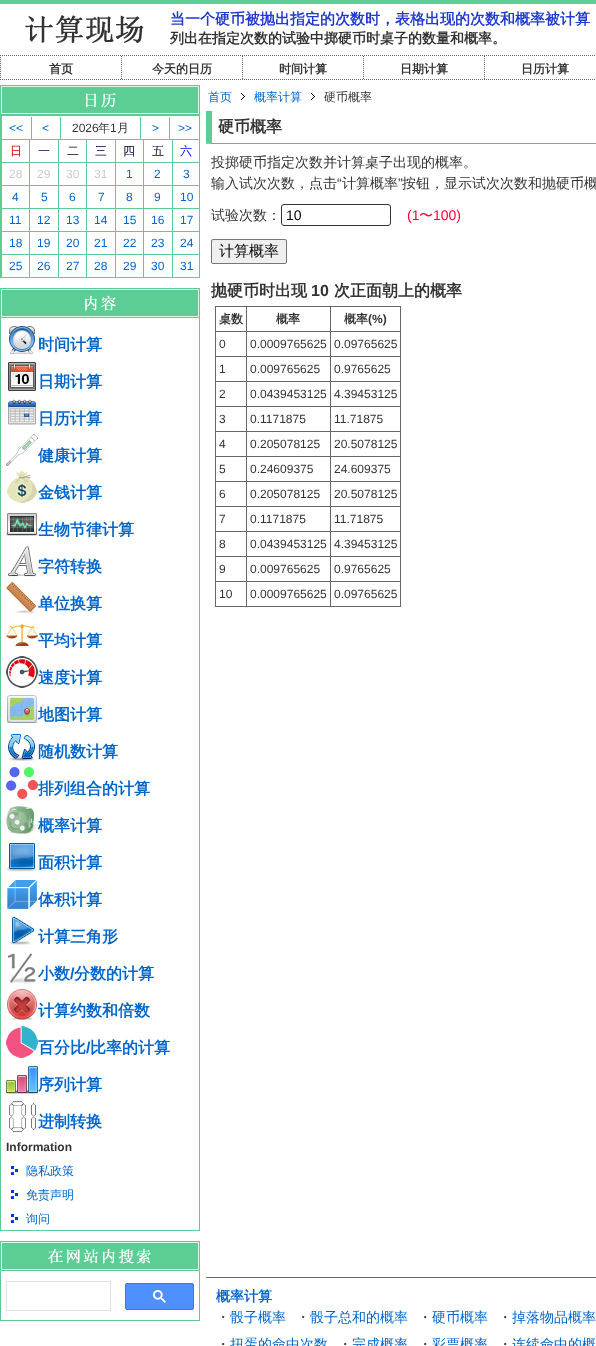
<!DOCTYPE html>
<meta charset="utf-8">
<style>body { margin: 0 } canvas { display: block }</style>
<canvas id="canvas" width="596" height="1346"></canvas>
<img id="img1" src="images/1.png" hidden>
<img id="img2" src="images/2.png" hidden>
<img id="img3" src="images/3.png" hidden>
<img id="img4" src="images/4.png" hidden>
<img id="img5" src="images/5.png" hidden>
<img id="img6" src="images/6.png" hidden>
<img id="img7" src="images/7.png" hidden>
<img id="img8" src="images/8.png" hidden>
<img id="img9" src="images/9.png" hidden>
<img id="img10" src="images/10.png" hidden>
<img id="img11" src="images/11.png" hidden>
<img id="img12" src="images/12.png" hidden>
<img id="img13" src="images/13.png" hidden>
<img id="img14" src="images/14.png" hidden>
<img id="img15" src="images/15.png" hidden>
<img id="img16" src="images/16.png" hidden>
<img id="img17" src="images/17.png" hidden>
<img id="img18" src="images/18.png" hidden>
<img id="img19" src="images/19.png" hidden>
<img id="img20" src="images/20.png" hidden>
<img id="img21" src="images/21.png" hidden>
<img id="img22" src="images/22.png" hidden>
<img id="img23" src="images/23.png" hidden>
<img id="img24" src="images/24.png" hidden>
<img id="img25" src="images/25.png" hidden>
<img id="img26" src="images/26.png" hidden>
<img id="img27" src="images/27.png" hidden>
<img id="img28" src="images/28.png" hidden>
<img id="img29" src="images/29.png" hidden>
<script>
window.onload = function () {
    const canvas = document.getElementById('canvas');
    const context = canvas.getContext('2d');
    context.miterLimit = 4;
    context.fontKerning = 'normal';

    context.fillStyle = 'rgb(255, 255, 255)';
    context.fillRect(0, 0, 596, 1346);
    context.fillStyle = 'rgb(92, 205, 149)';
    context.fillRect(0, 0, 596, 4);
    context.drawImage(document.getElementById('img1'), 25, 15, 119, 28);
    context.beginPath();
    context.moveTo(0, 55.5);
    context.lineTo(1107, 55.5);
    context.strokeStyle = 'rgb(102, 102, 102)';
    context.setLineDash([1, 1]);
    context.stroke();
    context.beginPath();
    context.moveTo(0, 79.5);
    context.lineTo(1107, 79.5);
    context.stroke();
    context.beginPath();
    context.moveTo(0.5, 55);
    context.lineTo(0.5, 80);
    context.stroke();
    context.beginPath();
    context.moveTo(121.5, 56);
    context.lineTo(121.5, 79);
    context.stroke();
    context.beginPath();
    context.moveTo(242.5, 56);
    context.lineTo(242.5, 79);
    context.stroke();
    context.beginPath();
    context.moveTo(363.5, 56);
    context.lineTo(363.5, 79);
    context.stroke();
    context.beginPath();
    context.moveTo(484.5, 56);
    context.lineTo(484.5, 79);
    context.stroke();
    context.drawImage(document.getElementById('img2'), 0, 85, 200, 30);
    context.fillRect(199, 115, 1, 163);
    context.fillRect(0, 277, 200, 1);
    context.fillRect(0, 115, 1, 163);
    context.fillRect(1, 115, 199, 1);
    context.fillRect(1, 115, 1, 24);
    context.fillRect(31, 117, 1, 22);
    context.fillRect(60, 117, 1, 22);
    context.fillRect(140, 117, 1, 22);
    context.fillRect(169, 117, 1, 22);
    context.fillRect(1, 139, 199, 1);
    context.fillRect(1, 139, 1, 23);
    context.fillRect(29, 139, 1, 23);
    context.fillRect(58, 139, 1, 23);
    context.fillRect(86, 139, 1, 23);
    context.fillRect(115, 139, 1, 23);
    context.fillRect(143, 139, 1, 23);
    context.fillRect(172, 139, 1, 23);
    context.fillRect(1, 162, 199, 1);
    context.fillRect(1, 162, 1, 23);
    context.fillRect(29, 162, 1, 23);
    context.fillRect(58, 162, 1, 23);
    context.fillRect(86, 162, 1, 23);
    context.fillRect(115, 162, 1, 23);
    context.fillRect(143, 162, 1, 23);
    context.fillRect(172, 162, 1, 23);
    context.fillRect(1, 185, 199, 1);
    context.fillRect(1, 185, 1, 23);
    context.fillRect(29, 185, 1, 23);
    context.fillRect(58, 185, 1, 23);
    context.fillRect(86, 185, 1, 23);
    context.fillRect(115, 185, 1, 23);
    context.fillRect(143, 185, 1, 23);
    context.fillRect(172, 185, 1, 23);
    context.fillRect(1, 208, 199, 1);
    context.fillRect(1, 208, 1, 23);
    context.fillRect(29, 208, 1, 23);
    context.fillRect(58, 208, 1, 23);
    context.fillRect(86, 208, 1, 23);
    context.fillRect(115, 208, 1, 23);
    context.fillRect(143, 208, 1, 23);
    context.fillRect(172, 208, 1, 23);
    context.fillRect(1, 231, 199, 1);
    context.fillRect(1, 231, 1, 23);
    context.fillRect(29, 231, 1, 23);
    context.fillRect(58, 231, 1, 23);
    context.fillRect(86, 231, 1, 23);
    context.fillRect(115, 231, 1, 23);
    context.fillRect(143, 231, 1, 23);
    context.fillRect(172, 231, 1, 23);
    context.fillRect(1, 254, 199, 1);
    context.fillRect(1, 254, 1, 23);
    context.fillRect(29, 254, 1, 23);
    context.fillRect(58, 254, 1, 23);
    context.fillRect(86, 254, 1, 23);
    context.fillRect(115, 254, 1, 23);
    context.fillRect(143, 254, 1, 23);
    context.fillRect(172, 254, 1, 23);
    context.drawImage(document.getElementById('img3'), 0, 288, 200, 30);
    context.fillRect(199, 318, 1, 913);
    context.fillRect(0, 1230, 200, 1);
    context.fillRect(0, 318, 1, 913);
    context.drawImage(document.getElementById('img4'), 8, 326, 28, 29);
    context.drawImage(document.getElementById('img5'), 8, 362, 28, 29);
    context.drawImage(document.getElementById('img6'), 8, 399, 28, 26);
    context.drawImage(document.getElementById('img7'), 6, 434, 32, 32);
    context.drawImage(document.getElementById('img8'), 7, 471, 30, 32);
    context.drawImage(document.getElementById('img9'), 6, 513, 32, 23);
    context.drawImage(document.getElementById('img10'), 7, 546, 30, 31);
    context.drawImage(document.getElementById('img11'), 6, 582, 30, 32);
    context.drawImage(document.getElementById('img12'), 6, 624, 32, 22);
    context.drawImage(document.getElementById('img13'), 6, 656, 32, 32);
    context.drawImage(document.getElementById('img14'), 6, 695, 32, 28);
    context.drawImage(document.getElementById('img15'), 8, 734, 28, 27);
    context.drawImage(document.getElementById('img16'), 6, 767, 32, 32);
    context.drawImage(document.getElementById('img17'), 6, 806, 31, 28);
    context.drawImage(document.getElementById('img18'), 6, 843, 31, 29);
    context.drawImage(document.getElementById('img19'), 7, 880, 30, 29);
    context.drawImage(document.getElementById('img20'), 9, 916, 26, 29);
    context.drawImage(document.getElementById('img21'), 7, 953, 29, 31);
    context.drawImage(document.getElementById('img22'), 7, 989, 30, 31);
    context.drawImage(document.getElementById('img23'), 6, 1026, 32, 32);
    context.drawImage(document.getElementById('img24'), 6, 1066, 32, 28);
    context.drawImage(document.getElementById('img25'), 9, 1101, 27, 31);
    context.drawImage(document.getElementById('img26'), 11, 1166, 7, 9);
    context.drawImage(document.getElementById('img26'), 11, 1190, 7, 9);
    context.drawImage(document.getElementById('img26'), 11, 1214, 7, 9);
    context.drawImage(document.getElementById('img27'), 0, 1241, 200, 30);
    context.fillRect(199, 1271, 1, 50);
    context.fillRect(0, 1320, 200, 1);
    context.fillRect(0, 1271, 1, 50);
    context.strokeStyle = 'rgb(223, 225, 229)';
    context.setLineDash([]);
    context.strokeRect(6.5, 1281.5, 104, 29);
    context.fillStyle = 'rgb(77, 144, 254)';
    context.beginPath();
    context.roundRect(125.5, 1283.5, 68, 26, 1.5);
    context.fill();
    context.strokeStyle = 'rgb(48, 121, 237)';
    context.stroke();
    context.drawImage(document.getElementById('img28'), 153, 1290, 13, 13);
    context.drawImage(document.getElementById('img29'), 241, 93, 4, 7);
    context.drawImage(document.getElementById('img29'), 311, 93, 4, 7);
    context.fillStyle = 'rgb(153, 153, 153)';
    context.beginPath();
    context.moveTo(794, 144);
    context.lineTo(206, 144);
    context.lineTo(212, 143);
    context.lineTo(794, 143);
    context.closePath();
    context.fill();
    context.fillStyle = 'rgb(92, 205, 149)';
    context.beginPath();
    context.moveTo(206, 144);
    context.lineTo(206, 111);
    context.lineTo(212, 111);
    context.lineTo(212, 143);
    context.closePath();
    context.fill();
    context.beginPath();
    context.roundRect(281.5, 204.5, 109, 21, 2.5);
    context.strokeStyle = 'rgb(51, 51, 51)';
    context.stroke();
    context.fillStyle = 'rgb(239, 239, 239)';
    context.beginPath();
    context.roundRect(211.5, 239.5, 75, 24, 1.5);
    context.fill();
    context.strokeStyle = 'rgb(118, 118, 118)';
    context.stroke();
    context.fillStyle = 'rgb(102, 102, 102)';
    context.fillRect(215, 306, 186, 1);
    context.fillRect(215, 306, 1, 301);
    context.fillRect(246, 307, 1, 300);
    context.fillRect(216, 331, 31, 1);
    context.fillRect(330, 307, 1, 300);
    context.fillRect(247, 331, 84, 1);
    context.fillRect(400, 307, 1, 300);
    context.fillRect(331, 331, 70, 1);
    context.fillRect(216, 356, 185, 1);
    context.fillRect(216, 381, 185, 1);
    context.fillRect(216, 406, 185, 1);
    context.fillRect(216, 431, 185, 1);
    context.fillRect(216, 456, 185, 1);
    context.fillRect(216, 481, 185, 1);
    context.fillRect(216, 506, 185, 1);
    context.fillRect(216, 531, 185, 1);
    context.fillRect(216, 556, 185, 1);
    context.fillRect(216, 581, 185, 1);
    context.fillRect(216, 606, 185, 1);
    context.fillRect(206, 1277, 390, 1);
    context.font = 'bold 15px WenQuanYi Zen Hei';
    context.fillStyle = 'rgb(34, 58, 206)';
    context.fillText('当一个硬币被抛出指定的次数时，表格出现的次数和概率被计算', 170, 24);
    context.font = 'bold 14px WenQuanYi Zen Hei';
    context.fillStyle = 'rgb(51, 51, 51)';
    context.fillText('列出在指定次数的试验中掷硬币时桌子的数量和概率。', 170, 43);
    context.font = 'bold 12px WenQuanYi Zen Hei';
    context.fillText('首页', 49, 73);
    context.fillText('今天的日历', 152, 73);
    context.fillText('时间计算', 279, 73);
    context.fillText('日期计算', 400, 73);
    context.fillText('日历计算', 521, 73);
    context.font = '12px Liberation Sans';
    context.fillStyle = 'rgb(0, 102, 204)';
    context.fillText('<<', 9, 132);
    context.fillText('<', 42, 132);
    context.fillStyle = 'rgb(51, 51, 51)';
    context.fillText('2026', 72, 132);
    context.font = '500 12px WenQuanYi Zen Hei';
    context.fillText('年', 98, 132);
    context.font = '12px Liberation Sans';
    context.fillText('1', 110, 132);
    context.font = '500 12px WenQuanYi Zen Hei';
    context.fillText('月', 117, 132);
    context.font = '12px Liberation Sans';
    context.fillStyle = 'rgb(0, 102, 204)';
    context.fillText('>', 152, 132);
    context.fillText('>>', 178, 132);
    context.font = '500 12px WenQuanYi Zen Hei';
    context.fillStyle = 'rgb(204, 0, 0)';
    context.fillText('日', 10, 155);
    context.fillStyle = 'rgb(0, 0, 51)';
    context.fillText('一', 38, 155);
    context.fillText('二', 67, 155);
    context.fillText('三', 95, 155);
    context.fillText('四', 123, 155);
    context.fillText('五', 152, 155);
    context.fillStyle = 'rgb(0, 0, 255)';
    context.fillText('六', 180, 155);
    context.font = '12px Liberation Sans';
    context.fillStyle = 'rgb(204, 204, 204)';
    context.fillText('28', 9, 178);
    context.fillText('29', 37, 178);
    context.fillText('30', 66, 178);
    context.fillText('31', 94, 178);
    context.fillStyle = 'rgb(0, 102, 204)';
    context.fillText('1', 126, 178);
    context.fillText('2', 154, 178);
    context.fillText('3', 183, 178);
    context.fillText('4', 12, 201);
    context.fillText('5', 41, 201);
    context.fillText('6', 69, 201);
    context.fillText('7', 98, 201);
    context.fillText('8', 126, 201);
    context.fillText('9', 154, 201);
    context.fillText('10', 180, 201);
    context.fillText('11', 9, 224);
    context.fillText('12', 37, 224);
    context.fillText('13', 66, 224);
    context.fillText('14', 94, 224);
    context.fillText('15', 123, 224);
    context.fillText('16', 151, 224);
    context.fillText('17', 180, 224);
    context.fillText('18', 9, 247);
    context.fillText('19', 37, 247);
    context.fillText('20', 66, 247);
    context.fillText('21', 94, 247);
    context.fillText('22', 123, 247);
    context.fillText('23', 151, 247);
    context.fillText('24', 180, 247);
    context.fillText('25', 9, 270);
    context.fillText('26', 37, 270);
    context.fillText('27', 66, 270);
    context.fillText('28', 94, 270);
    context.fillText('29', 123, 270);
    context.fillText('30', 151, 270);
    context.fillText('31', 180, 270);
    context.font = 'bold 16px WenQuanYi Zen Hei';
    context.fillText('时间计算', 38, 350);
    context.fillText('日期计算', 38, 387);
    context.fillText('日历计算', 38, 424);
    context.fillText('健康计算', 38, 461);
    context.fillText('金钱计算', 38, 498);
    context.fillText('生物节律计算', 38, 535);
    context.fillText('字符转换', 38, 572);
    context.fillText('单位换算', 38, 609);
    context.fillText('平均计算', 38, 646);
    context.fillText('速度计算', 38, 683);
    context.fillText('地图计算', 38, 720);
    context.fillText('随机数计算', 38, 757);
    context.fillText('排列组合的计算', 38, 794);
    context.fillText('概率计算', 38, 831);
    context.fillText('面积计算', 38, 868);
    context.fillText('体积计算', 38, 905);
    context.fillText('计算三角形', 38, 942);
    context.fillText('小数', 38, 979);
    context.font = 'bold 16px Liberation Sans';
    context.fillText('/', 70, 979);
    context.font = 'bold 16px WenQuanYi Zen Hei';
    context.fillText('分数的计算', 74, 979);
    context.fillText('计算约数和倍数', 38, 1016);
    context.fillText('百分比', 38, 1053);
    context.font = 'bold 16px Liberation Sans';
    context.fillText('/', 86, 1053);
    context.font = 'bold 16px WenQuanYi Zen Hei';
    context.fillText('比率的计算', 90, 1053);
    context.fillText('序列计算', 38, 1090);
    context.fillText('进制转换', 38, 1127);
    context.font = 'bold 12px Liberation Sans';
    context.fillStyle = 'rgb(51, 51, 51)';
    context.fillText('Information', 6, 1151);
    context.font = '500 12px WenQuanYi Zen Hei';
    context.fillStyle = 'rgb(0, 102, 204)';
    context.fillText('隐私政策', 26, 1175);
    context.fillText('免责声明', 26, 1199);
    context.fillText('询问', 26, 1223);
    context.fillText('首页', 208, 101);
    context.fillText('概率计算', 254, 101);
    context.fillStyle = 'rgb(51, 51, 51)';
    context.fillText('硬币概率', 324, 101);
    context.font = 'bold 16px WenQuanYi Zen Hei';
    context.fillText('硬币概率', 218, 132);
    context.font = '500 14px WenQuanYi Zen Hei';
    context.fillText('投掷硬币指定次数并计算桌子出现的概率。', 211, 167);
    context.fillText('输入试次次数，点击', 211, 188);
    context.font = '14px Liberation Sans';
    context.fillText('“', 337, 188);
    context.font = '500 14px WenQuanYi Zen Hei';
    context.fillText('计算概率', 342, 188);
    context.font = '14px Liberation Sans';
    context.fillText('”', 398, 188);
    context.font = '500 14px WenQuanYi Zen Hei';
    context.fillText('按钮，显示试次次数和抛硬币概', 402, 188);
    context.fillText('试验次数：', 211, 220);
    context.font = '14px Liberation Sans';
    context.fillStyle = 'rgb(0, 0, 0)';
    context.fillText('10', 286, 220);
    context.fillStyle = 'rgb(255, 0, 51)';
    context.fillText('(1', 407, 220);
    context.font = '500 14px WenQuanYi Zen Hei';
    context.fillText('〜', 419, 220);
    context.font = '14px Liberation Sans';
    context.fillText('100)', 433, 220);
    context.font = '500 15px WenQuanYi Zen Hei';
    context.fillStyle = 'rgb(0, 0, 0)';
    context.fillText('计算概率', 219, 256);
    context.font = 'bold 16px WenQuanYi Zen Hei';
    context.fillStyle = 'rgb(51, 51, 51)';
    context.fillText('抛硬币时出现', 211, 296);
    context.font = 'bold 16px Liberation Sans';
    context.fillText('10', 311, 296);
    context.font = 'bold 16px WenQuanYi Zen Hei';
    context.fillText('次正面朝上的概率', 334, 296);
    context.font = 'bold 12px WenQuanYi Zen Hei';
    context.fillText('桌数', 219, 323);
    context.fillText('概率', 276, 323);
    context.fillText('概率', 344, 323);
    context.font = 'bold 12px Liberation Sans';
    context.fillText('(%)', 368, 323);
    context.font = '12px Liberation Sans';
    context.fillText('0', 219, 348);
    context.fillText('0.0009765625', 250, 348);
    context.fillText('0.09765625', 334, 348);
    context.fillText('1', 219, 373);
    context.fillText('0.009765625', 250, 373);
    context.fillText('0.9765625', 334, 373);
    context.fillText('2', 219, 398);
    context.fillText('0.0439453125', 250, 398);
    context.fillText('4.39453125', 334, 398);
    context.fillText('3', 219, 423);
    context.fillText('0.1171875', 250, 423);
    context.fillText('11.71875', 334, 423);
    context.fillText('4', 219, 448);
    context.fillText('0.205078125', 250, 448);
    context.fillText('20.5078125', 334, 448);
    context.fillText('5', 219, 473);
    context.fillText('0.24609375', 250, 473);
    context.fillText('24.609375', 334, 473);
    context.fillText('6', 219, 498);
    context.fillText('0.205078125', 250, 498);
    context.fillText('20.5078125', 334, 498);
    context.fillText('7', 219, 523);
    context.fillText('0.1171875', 250, 523);
    context.fillText('11.71875', 334, 523);
    context.fillText('8', 219, 548);
    context.fillText('0.0439453125', 250, 548);
    context.fillText('4.39453125', 334, 548);
    context.fillText('9', 219, 573);
    context.fillText('0.009765625', 250, 573);
    context.fillText('0.9765625', 334, 573);
    context.fillText('10', 219, 598);
    context.fillText('0.0009765625', 250, 598);
    context.fillText('0.09765625', 334, 598);
    context.font = 'bold 14px WenQuanYi Zen Hei';
    context.fillStyle = 'rgb(0, 102, 204)';
    context.fillText('概率计算', 216, 1301);
    context.font = '500 14px WenQuanYi Zen Hei';
    context.fillStyle = 'rgb(51, 51, 51)';
    context.fillText('・', 216, 1322);
    context.fillStyle = 'rgb(0, 102, 204)';
    context.fillText('骰子概率', 230, 1322);
    context.fillStyle = 'rgb(51, 51, 51)';
    context.fillText('・', 296, 1322);
    context.fillStyle = 'rgb(0, 102, 204)';
    context.fillText('骰子总和的概率', 310, 1322);
    context.fillStyle = 'rgb(51, 51, 51)';
    context.fillText('・', 418, 1322);
    context.fillStyle = 'rgb(0, 102, 204)';
    context.fillText('硬币概率', 432, 1322);
    context.fillStyle = 'rgb(51, 51, 51)';
    context.fillText('・', 498, 1322);
    context.fillStyle = 'rgb(0, 102, 204)';
    context.fillText('掉落物品概率', 512, 1322);
    context.fillStyle = 'rgb(51, 51, 51)';
    context.fillText('・', 216, 1349);
    context.fillStyle = 'rgb(0, 102, 204)';
    context.fillText('扭蛋的命中次数', 230, 1349);
    context.fillStyle = 'rgb(51, 51, 51)';
    context.fillText('・', 338, 1349);
    context.fillStyle = 'rgb(0, 102, 204)';
    context.fillText('完成概率', 352, 1349);
    context.fillStyle = 'rgb(51, 51, 51)';
    context.fillText('・', 418, 1349);
    context.fillStyle = 'rgb(0, 102, 204)';
    context.fillText('彩票概率', 432, 1349);
    context.fillStyle = 'rgb(51, 51, 51)';
    context.fillText('・', 498, 1349);
    context.fillStyle = 'rgb(0, 102, 204)';
    context.fillText('连续命中的概', 512, 1349);
};
</script>
